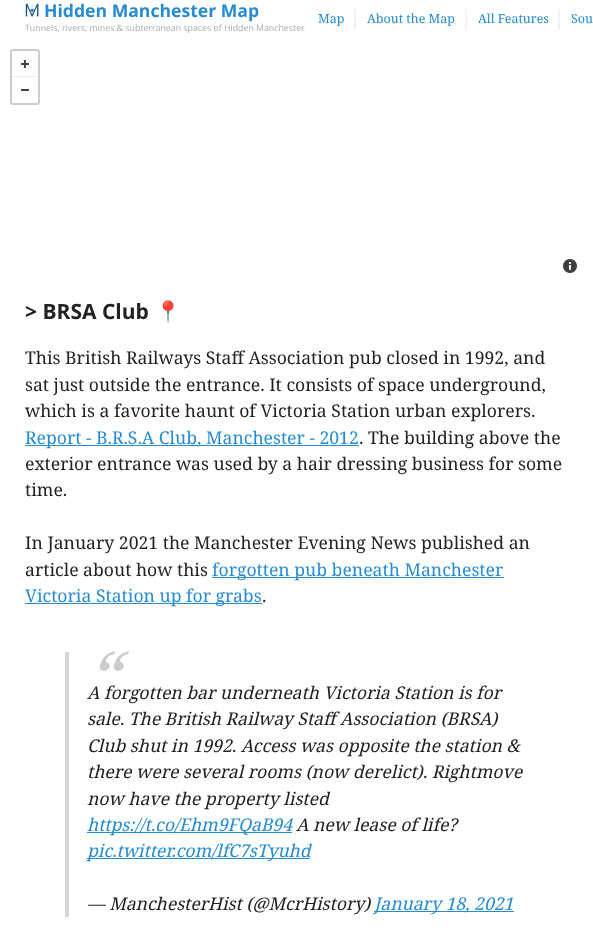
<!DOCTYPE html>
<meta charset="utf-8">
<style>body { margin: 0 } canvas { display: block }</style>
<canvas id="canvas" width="593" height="939"></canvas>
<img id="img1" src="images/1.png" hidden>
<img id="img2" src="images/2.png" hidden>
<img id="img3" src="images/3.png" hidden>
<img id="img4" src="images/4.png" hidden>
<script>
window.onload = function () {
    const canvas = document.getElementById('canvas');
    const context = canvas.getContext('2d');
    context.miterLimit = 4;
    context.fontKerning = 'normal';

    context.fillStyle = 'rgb(255, 255, 255)';
    context.fillRect(0, 0, 593, 939);
    context.drawImage(document.getElementById('img1'), 25, 3, 14, 14);
    context.fillStyle = 'rgb(242, 242, 242)';
    context.fillRect(354, 9, 2, 21);
    context.fillRect(465, 9, 2, 21);
    context.fillRect(558, 9, 2, 21);
    context.beginPath();
    context.roundRect(11, 50, 28, 54, 2);
    context.strokeStyle = 'rgb(204, 204, 204)';
    context.lineWidth = 2;
    context.stroke();
    context.drawImage(document.getElementById('img2'), 21, 60, 8, 8);
    context.fillStyle = 'rgb(236, 236, 236)';
    context.fillRect(12, 76, 26, 1);
    context.drawImage(document.getElementById('img3'), 21, 89, 8, 2);
    context.drawImage(document.getElementById('img4'), 563, 259, 14, 14);
    context.fillStyle = 'rgb(38, 139, 210)';
    context.fillRect(25, 445, 334, 1);
    context.fillRect(212, 577, 292, 1);
    context.fillRect(25, 603, 237, 1);
    context.fillStyle = 'rgb(213, 213, 213)';
    context.fillRect(65, 652, 4, 265);
    context.fillStyle = 'rgb(38, 139, 210)';
    context.fillRect(87, 832, 205, 1);
    context.fillRect(87, 858, 223, 1);
    context.fillRect(374, 911, 140, 1);
    context.font = 'bold 17.6px Open Sans';
    context.fillText('Hidden Manchester Map', 44, 17);
    context.font = '8.8px Open Sans';
    context.fillStyle = 'rgb(170, 170, 170)';
    context.fillText('Tunnels, rivers, mines & subterranean spaces of Hidden Manchester', 25, 31);
    context.font = '12.5px Noto Serif';
    context.fillStyle = 'rgb(38, 139, 210)';
    context.fillText('Map', 318, 23);
    context.fillText('About the Map', 367, 23);
    context.fillText('All Features', 478, 23);
    context.fillText('Sou', 571, 23);
    context.font = 'bold 21px Open Sans';
    context.fillStyle = 'rgb(34, 34, 34)';
    context.fillText('> BRSA Club', 25, 319);
    context.font = '21px Noto Color Emoji';
    context.fillStyle = 'rgb(38, 139, 210)';
    context.fillText('📍', 155, 319);
    context.font = '17.6px Noto Serif';
    context.fillStyle = 'rgb(34, 34, 34)';
    context.fillText('This British Railways Staff Association pub closed in 1992, and', 25, 364);
    context.fillText('sat just outside the entrance. It consists of space underground,', 25, 391);
    context.fillText('which is a favorite haunt of Victoria Station urban explorers.', 25, 417);
    context.fillStyle = 'rgb(38, 139, 210)';
    context.fillText('Report - B.R.S.A Club, Manchester - 2012', 25, 444);
    context.fillStyle = 'rgb(34, 34, 34)';
    context.fillText('. The building above the', 359, 444);
    context.fillText('exterior entrance was used by a hair dressing business for some', 25, 470);
    context.fillText('time.', 25, 496);
    context.fillText('In January 2021 the Manchester Evening News published an', 25, 549);
    context.fillText('article about how this', 25, 576);
    context.fillStyle = 'rgb(38, 139, 210)';
    context.fillText('forgotten pub beneath Manchester', 212, 576);
    context.fillText('Victoria Station up for grabs', 25, 602);
    context.fillStyle = 'rgb(34, 34, 34)';
    context.fillText('.', 262, 602);
    context.font = 'italic 70px Noto Serif';
    context.fillStyle = 'rgb(204, 204, 204)';
    context.fillText('“', 87, 701);
    context.font = 'italic 17.6px Noto Serif';
    context.fillStyle = 'rgb(34, 34, 34)';
    context.fillText('A forgotten bar underneath Victoria Station is for', 87, 699);
    context.fillText('sale. The British Railway Staff Association (BRSA)', 87, 725);
    context.fillText('Club shut in 1992. Access was opposite the station &', 87, 752);
    context.fillText('there were several rooms (now derelict). Rightmove', 87, 778);
    context.fillText('now have the property listed', 87, 805);
    context.fillStyle = 'rgb(38, 139, 210)';
    context.fillText('https://t.co/Ehm9FQaB94', 87, 831);
    context.fillStyle = 'rgb(34, 34, 34)';
    context.fillText('A new lease of life?', 296, 831);
    context.fillStyle = 'rgb(38, 139, 210)';
    context.fillText('pic.twitter.com/lfC7sTyuhd', 87, 857);
    context.fillStyle = 'rgb(34, 34, 34)';
    context.fillText('— ManchesterHist (@McrHistory)', 87, 910);
    context.fillStyle = 'rgb(38, 139, 210)';
    context.fillText('January 18, 2021', 374, 910);
};
</script>
